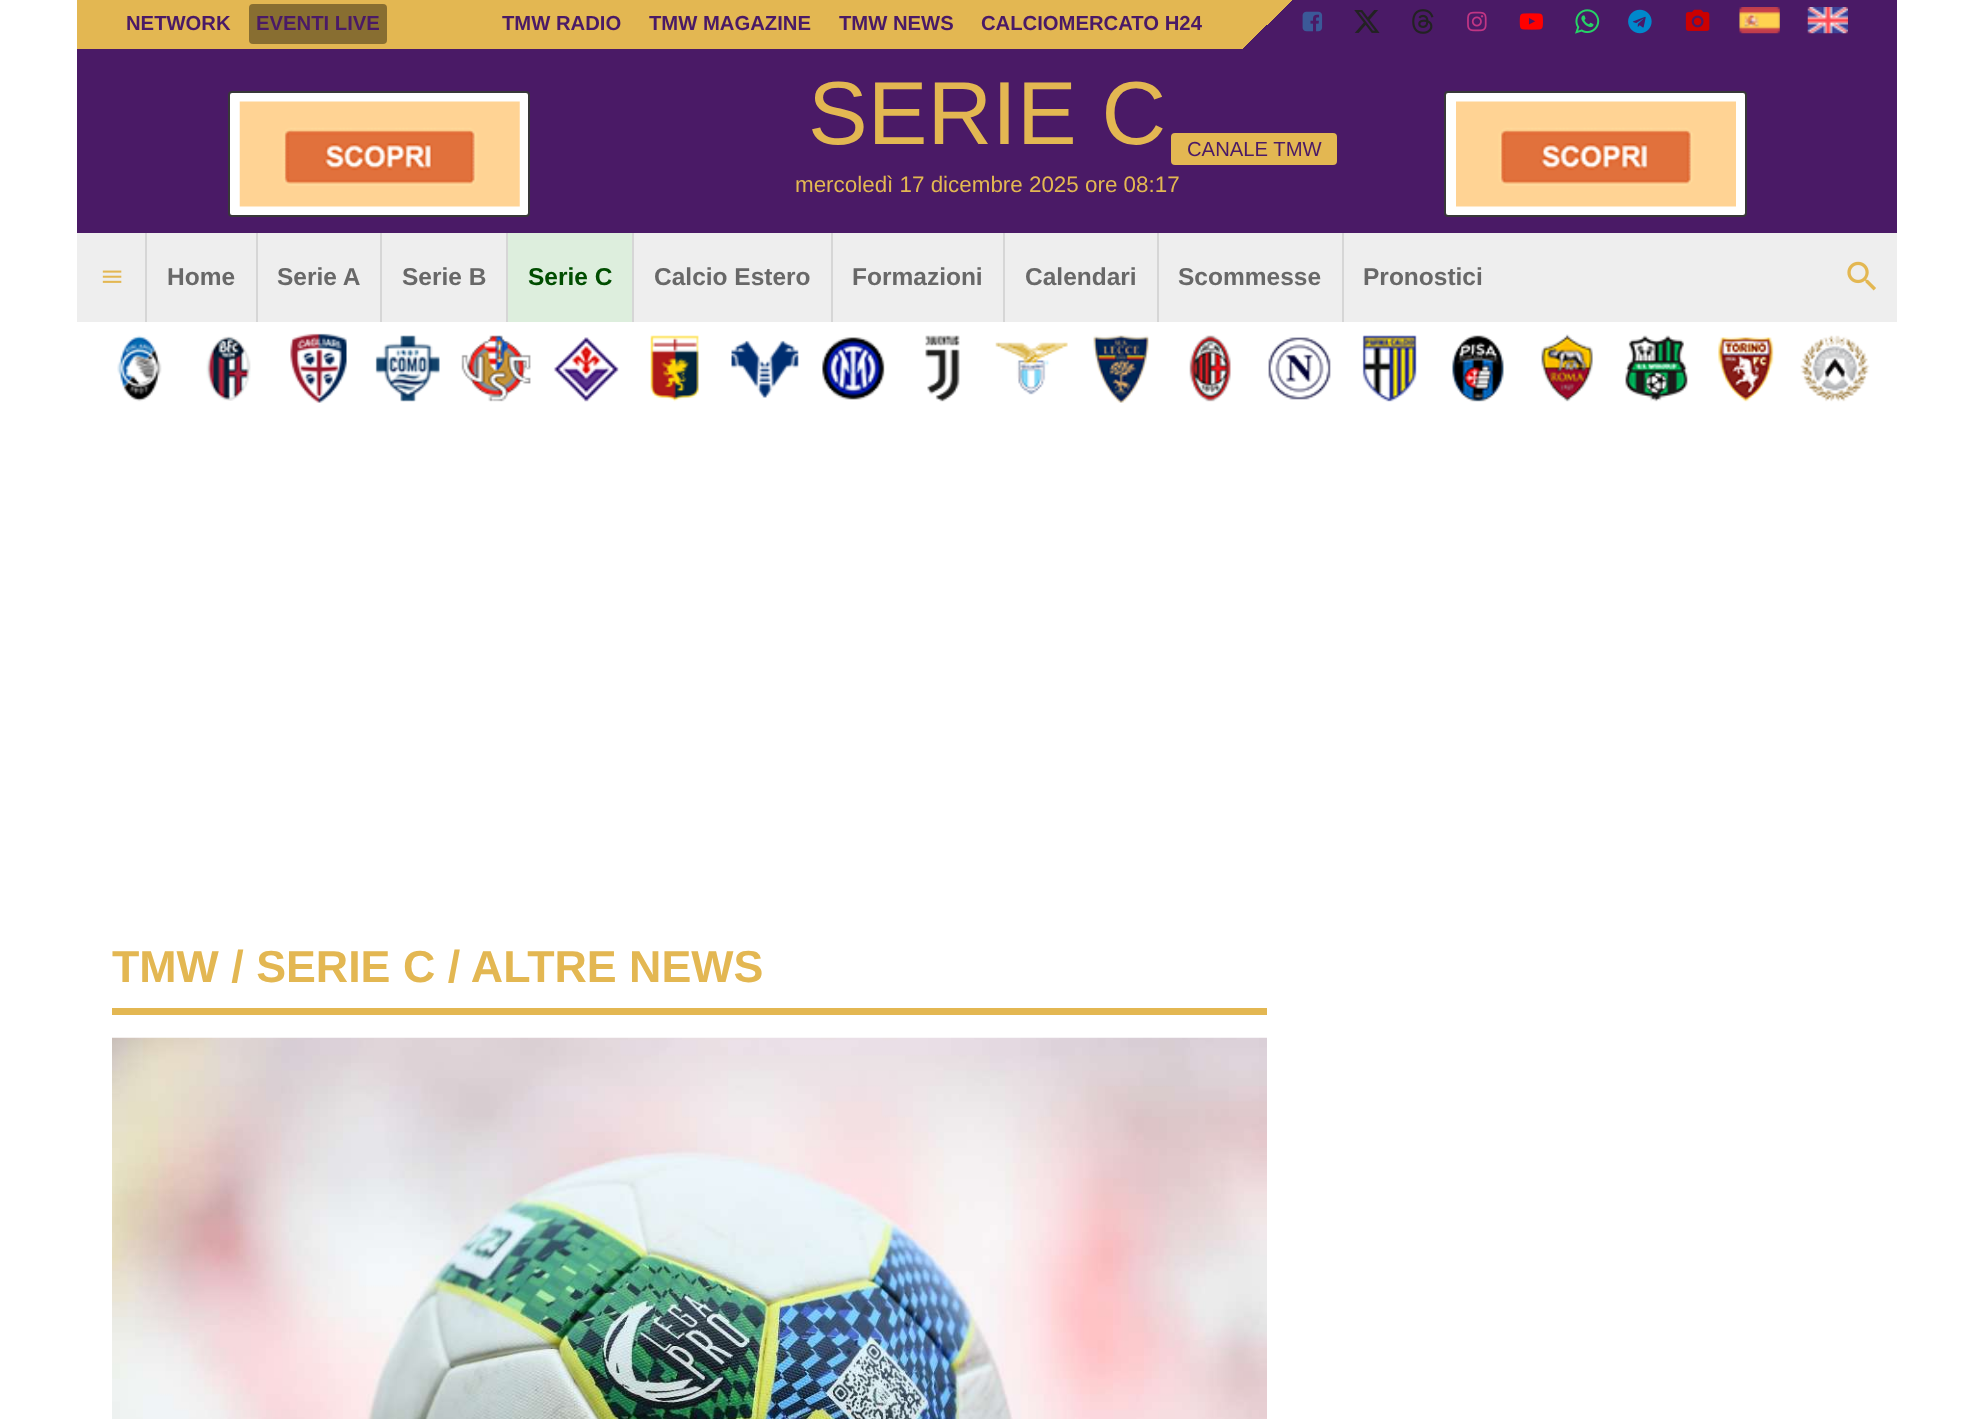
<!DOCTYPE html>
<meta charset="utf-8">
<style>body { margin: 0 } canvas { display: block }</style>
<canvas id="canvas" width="1974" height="1419"></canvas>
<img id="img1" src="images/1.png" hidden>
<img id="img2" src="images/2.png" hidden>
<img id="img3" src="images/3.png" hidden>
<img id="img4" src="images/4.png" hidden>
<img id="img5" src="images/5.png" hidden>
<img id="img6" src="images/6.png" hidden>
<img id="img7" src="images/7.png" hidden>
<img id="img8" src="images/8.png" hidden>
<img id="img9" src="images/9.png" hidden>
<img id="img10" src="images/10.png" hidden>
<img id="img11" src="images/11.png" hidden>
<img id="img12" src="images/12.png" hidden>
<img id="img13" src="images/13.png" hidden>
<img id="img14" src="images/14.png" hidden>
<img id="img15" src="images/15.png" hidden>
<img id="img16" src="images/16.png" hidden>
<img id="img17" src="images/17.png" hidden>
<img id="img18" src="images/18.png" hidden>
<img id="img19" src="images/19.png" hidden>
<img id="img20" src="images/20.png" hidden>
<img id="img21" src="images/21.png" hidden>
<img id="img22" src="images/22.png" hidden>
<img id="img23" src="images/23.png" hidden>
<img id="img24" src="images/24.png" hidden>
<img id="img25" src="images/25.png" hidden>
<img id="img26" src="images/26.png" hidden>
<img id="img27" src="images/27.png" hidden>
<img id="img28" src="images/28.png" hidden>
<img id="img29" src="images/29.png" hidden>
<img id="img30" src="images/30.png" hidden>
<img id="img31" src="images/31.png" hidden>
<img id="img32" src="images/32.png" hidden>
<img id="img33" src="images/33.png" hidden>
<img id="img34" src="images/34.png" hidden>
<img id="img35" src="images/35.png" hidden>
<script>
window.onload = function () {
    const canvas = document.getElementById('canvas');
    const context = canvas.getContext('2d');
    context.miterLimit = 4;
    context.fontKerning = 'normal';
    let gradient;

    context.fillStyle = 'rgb(255, 255, 255)';
    context.fillRect(0, 0, 1974, 1419);
    gradient = context.createLinearGradient(520, -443, 1454, 492);
    gradient.addColorStop(0.65, 'rgb(227, 183, 82)');
    gradient.addColorStop(0.65, 'rgb(74, 26, 102)');
    gradient.addColorStop(1, 'rgb(74, 26, 102)');
    context.fillStyle = gradient;
    context.fillRect(77, 0, 1820, 49);
    context.fillStyle = 'rgb(136, 110, 49)';
    context.beginPath();
    context.roundRect(249, 4, 138, 40, 4);
    context.fill();
    context.drawImage(document.getElementById('img1'), 1302, 11, 21, 21);
    context.drawImage(document.getElementById('img2'), 1354, 10, 26, 23);
    context.drawImage(document.getElementById('img3'), 1412, 9, 22, 25);
    context.drawImage(document.getElementById('img4'), 1467, 11, 20, 21);
    context.drawImage(document.getElementById('img5'), 1519, 13, 24, 17);
    context.drawImage(document.getElementById('img6'), 1575, 9, 25, 25);
    context.drawImage(document.getElementById('img7'), 1628, 9, 24, 25);
    context.drawImage(document.getElementById('img8'), 1685, 9, 25, 22);
    context.drawImage(document.getElementById('img9'), 1739, 7, 41, 27);
    context.drawImage(document.getElementById('img10'), 1807, 7, 41, 27);
    context.fillStyle = 'rgb(74, 26, 102)';
    context.fillRect(77, 49, 1820, 184);
    context.fillStyle = 'rgb(255, 255, 255)';
    context.beginPath();
    context.roundRect(229, 92, 300, 124, 3);
    context.fill();
    context.strokeStyle = 'rgb(56, 56, 56)';
    context.lineWidth = 2;
    context.stroke();
    context.drawImage(document.getElementById('img11'), 239, 101, 281, 106);
    context.fillStyle = 'rgb(227, 183, 82)';
    context.beginPath();
    context.roundRect(1171, 133, 166, 32, 4);
    context.fill();
    context.fillStyle = 'rgb(255, 255, 255)';
    context.beginPath();
    context.roundRect(1445, 92, 301, 124, 3);
    context.fill();
    context.stroke();
    context.drawImage(document.getElementById('img12'), 1456, 101, 280, 106);
    context.fillStyle = 'rgb(238, 238, 238)';
    context.fillRect(77, 233, 1820, 89);
    context.drawImage(document.getElementById('img13'), 102, 270, 20, 13);
    context.fillStyle = 'rgb(214, 214, 214)';
    context.fillRect(145, 233, 2, 89);
    context.fillRect(256, 233, 2, 89);
    context.fillRect(380, 233, 2, 89);
    context.fillStyle = 'rgb(221, 238, 221)';
    context.fillRect(508, 233, 124, 89);
    context.fillStyle = 'rgb(214, 214, 214)';
    context.fillRect(506, 233, 2, 89);
    context.fillRect(632, 233, 2, 89);
    context.fillRect(831, 233, 2, 89);
    context.fillRect(1003, 233, 2, 89);
    context.fillRect(1157, 233, 2, 89);
    context.fillRect(1342, 233, 2, 89);
    context.drawImage(document.getElementById('img14'), 1847, 261, 29, 30);
    context.drawImage(document.getElementById('img15'), 117, 335, 45, 67);
    context.drawImage(document.getElementById('img16'), 206, 336, 45, 65);
    context.drawImage(document.getElementById('img17'), 290, 333, 57, 70);
    context.drawImage(document.getElementById('img18'), 375, 335, 65, 67);
    context.drawImage(document.getElementById('img19'), 461, 335, 70, 67);
    context.drawImage(document.getElementById('img20'), 553, 337, 67, 65);
    context.drawImage(document.getElementById('img21'), 650, 335, 49, 67);
    context.drawImage(document.getElementById('img22'), 731, 340, 68, 58);
    context.drawImage(document.getElementById('img23'), 822, 337, 63, 63);
    context.drawImage(document.getElementById('img24'), 925, 335, 35, 67);
    context.drawImage(document.getElementById('img25'), 995, 342, 73, 53);
    context.drawImage(document.getElementById('img26'), 1093, 335, 56, 68);
    context.drawImage(document.getElementById('img27'), 1189, 335, 42, 67);
    context.drawImage(document.getElementById('img28'), 1268, 337, 63, 63);
    context.drawImage(document.getElementById('img29'), 1362, 335, 55, 67);
    context.drawImage(document.getElementById('img30'), 1452, 335, 52, 67);
    context.drawImage(document.getElementById('img31'), 1541, 334, 52, 68);
    context.drawImage(document.getElementById('img32'), 1625, 335, 63, 67);
    context.drawImage(document.getElementById('img33'), 1718, 337, 56, 65);
    context.drawImage(document.getElementById('img34'), 1800, 335, 70, 67);
    context.fillStyle = 'rgb(227, 183, 82)';
    context.fillRect(112, 1008, 1155, 7);
    context.drawImage(document.getElementById('img35'), 112, 1037, 1155, 382);
    context.font = 'bold 20.25px Liberation Sans';
    context.fillStyle = 'rgb(74, 26, 102)';
    context.fillText('NETWORK', 126, 30);
    context.fillText('EVENTI LIVE', 256, 30);
    context.fillText('TMW RADIO', 502, 30);
    context.fillText('TMW MAGAZINE', 649, 30);
    context.fillText('TMW NEWS', 839, 30);
    context.fillText('CALCIOMERCATO H24', 981, 30);
    context.font = '89.5px Liberation Sans';
    context.fillStyle = 'rgb(227, 183, 82)';
    context.fillText('SERIE C', 808, 144);
    context.font = '20.25px Liberation Sans';
    context.fillStyle = 'rgb(74, 26, 102)';
    context.fillText('CANALE TMW', 1187, 156);
    context.font = '22.4px Liberation Sans';
    context.fillStyle = 'rgb(227, 183, 82)';
    context.fillText('mercoledì 17 dicembre 2025 ore 08:17', 795, 192);
    context.font = 'bold 24.5px Liberation Sans';
    context.fillStyle = 'rgb(104, 104, 104)';
    context.fillText('Home', 167, 285);
    context.fillText('Serie A', 277, 285);
    context.fillText('Serie B', 402, 285);
    context.fillStyle = 'rgb(0, 77, 0)';
    context.fillText('Serie C', 528, 285);
    context.fillStyle = 'rgb(104, 104, 104)';
    context.fillText('Calcio Estero', 654, 285);
    context.fillText('Formazioni', 852, 285);
    context.fillText('Calendari', 1025, 285);
    context.fillText('Scommesse', 1178, 285);
    context.fillText('Pronostici', 1363, 285);
    context.font = 'bold 44.75px Liberation Sans';
    context.fillStyle = 'rgb(227, 183, 82)';
    context.fillText('TMW / SERIE C / ALTRE NEWS', 112, 982);
};
</script>
